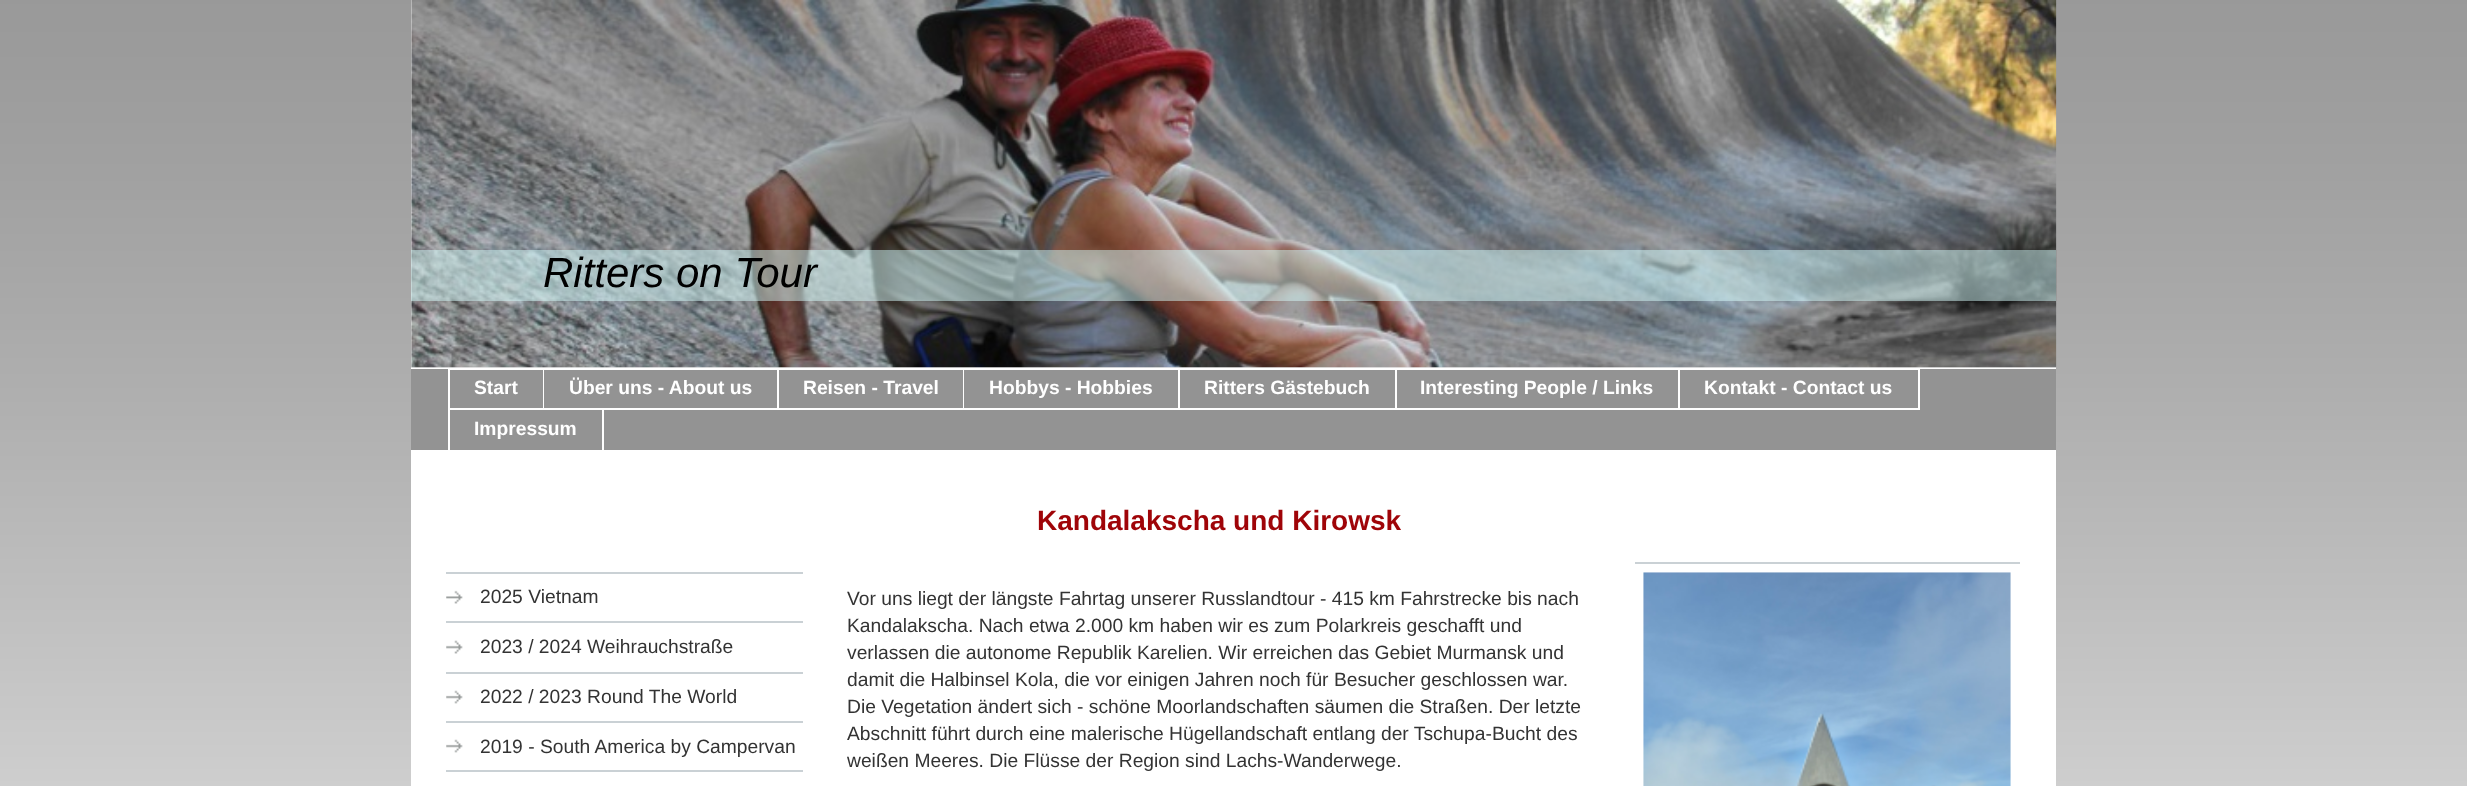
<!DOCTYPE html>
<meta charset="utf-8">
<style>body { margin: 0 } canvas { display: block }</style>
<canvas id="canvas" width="2467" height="786"></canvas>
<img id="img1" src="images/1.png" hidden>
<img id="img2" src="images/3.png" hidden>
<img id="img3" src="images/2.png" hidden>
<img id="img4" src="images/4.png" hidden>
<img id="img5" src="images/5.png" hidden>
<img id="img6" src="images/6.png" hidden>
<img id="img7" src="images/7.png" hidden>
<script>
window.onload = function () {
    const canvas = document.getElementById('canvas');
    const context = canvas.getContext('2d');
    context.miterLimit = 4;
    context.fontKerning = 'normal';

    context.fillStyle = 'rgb(255, 255, 255)';
    context.fillRect(0, 0, 2467, 786);
    context.drawImage(document.getElementById('img1'), 0, 0, 2467, 786);
    context.fillRect(411, 368, 1645, 418);
    context.fillStyle = 'rgb(238, 238, 238)';
    context.fillRect(411, 0, 1645, 368);
    context.drawImage(document.getElementById('img2'), 2056, 0, 1, 367);
    context.drawImage(document.getElementById('img3'), 411, 0, 1646, 368);
    context.fillStyle = 'rgba(211, 249, 250, 0.5)';
    context.fillRect(411, 250, 1645, 51);
    context.fillStyle = 'rgb(147, 147, 147)';
    context.fillRect(411, 369, 1645, 81);
    context.fillStyle = 'rgb(255, 255, 255)';
    context.fillRect(448, 368, 2, 82);
    context.fillRect(450, 369, 1470, 1);
    context.fillRect(543, 368, 1, 42);
    context.fillRect(777, 368, 2, 42);
    context.fillRect(450, 408, 329, 2);
    context.fillRect(963, 368, 1, 42);
    context.fillRect(779, 408, 185, 2);
    context.fillRect(1178, 368, 2, 42);
    context.fillRect(964, 408, 216, 2);
    context.fillRect(1395, 368, 2, 42);
    context.fillRect(1180, 408, 217, 2);
    context.fillRect(1678, 368, 2, 42);
    context.fillRect(1397, 408, 283, 2);
    context.fillRect(1918, 368, 2, 42);
    context.fillRect(1680, 408, 240, 2);
    context.fillRect(602, 408, 2, 44);
    context.fillStyle = 'rgb(202, 209, 213)';
    context.fillRect(446, 572, 357, 2);
    context.drawImage(document.getElementById('img4'), 446, 590, 17, 14);
    context.fillRect(446, 621, 357, 2);
    context.drawImage(document.getElementById('img5'), 446, 640, 17, 14);
    context.drawImage(document.getElementById('img6'), 446, 674, 357, 30);
    context.fillRect(446, 672, 357, 2);
    context.drawImage(document.getElementById('img6'), 446, 723, 357, 30);
    context.fillRect(446, 721, 357, 2);
    context.fillRect(446, 770, 357, 2);
    context.fillRect(1635, 562, 385, 2);
    context.drawImage(document.getElementById('img7'), 1643, 572, 368, 214);
    context.font = 'italic 42px Liberation Sans';
    context.fillStyle = 'rgb(0, 0, 0)';
    context.fillText('Ritters on Tour', 543, 287);
    context.font = 'bold 19.25px Liberation Sans';
    context.fillStyle = 'rgb(255, 255, 255)';
    context.fillText('Start', 474, 394);
    context.fillText('Über uns - About us', 569, 394);
    context.fillText('Reisen - Travel', 803, 394);
    context.fillText('Hobbys - Hobbies', 989, 394);
    context.fillText('Ritters Gästebuch', 1204, 394);
    context.fillText('Interesting People / Links', 1420, 394);
    context.fillText('Kontakt - Contact us', 1704, 394);
    context.fillText('Impressum', 474, 435);
    context.font = '19.25px Liberation Sans';
    context.fillStyle = 'rgb(51, 51, 51)';
    context.fillText('2025 Vietnam', 480, 603);
    context.fillText('2023 / 2024 Weihrauchstraße', 480, 653);
    context.fillText('2022 / 2023 Round The World', 480, 703);
    context.fillText('2019 - South America by Campervan', 480, 753);
    context.font = 'bold 28px Liberation Sans';
    context.fillStyle = 'rgb(159, 4, 8)';
    context.fillText('Kandalakscha und Kirowsk', 1037, 530);
    context.font = '19.25px Liberation Sans';
    context.fillStyle = 'rgb(51, 51, 51)';
    context.fillText('Vor uns liegt der längste Fahrtag unserer Russlandtour - 415 km Fahrstrecke bis nach', 847, 605);
    context.fillText('Kandalakscha. Nach etwa 2.000 km haben wir es zum Polarkreis geschafft und', 847, 632);
    context.fillText('verlassen die autonome Republik Karelien. Wir erreichen das Gebiet Murmansk und', 847, 659);
    context.fillText('damit die Halbinsel Kola, die vor einigen Jahren noch für Besucher geschlossen war.', 847, 686);
    context.fillText('Die Vegetation ändert sich - schöne Moorlandschaften säumen die Straßen. Der letzte', 847, 713);
    context.fillText('Abschnitt führt durch eine malerische Hügellandschaft entlang der Tschupa-Bucht des', 847, 740);
    context.fillText('weißen Meeres. Die Flüsse der Region sind Lachs-Wanderwege.', 847, 767);
};
</script>
